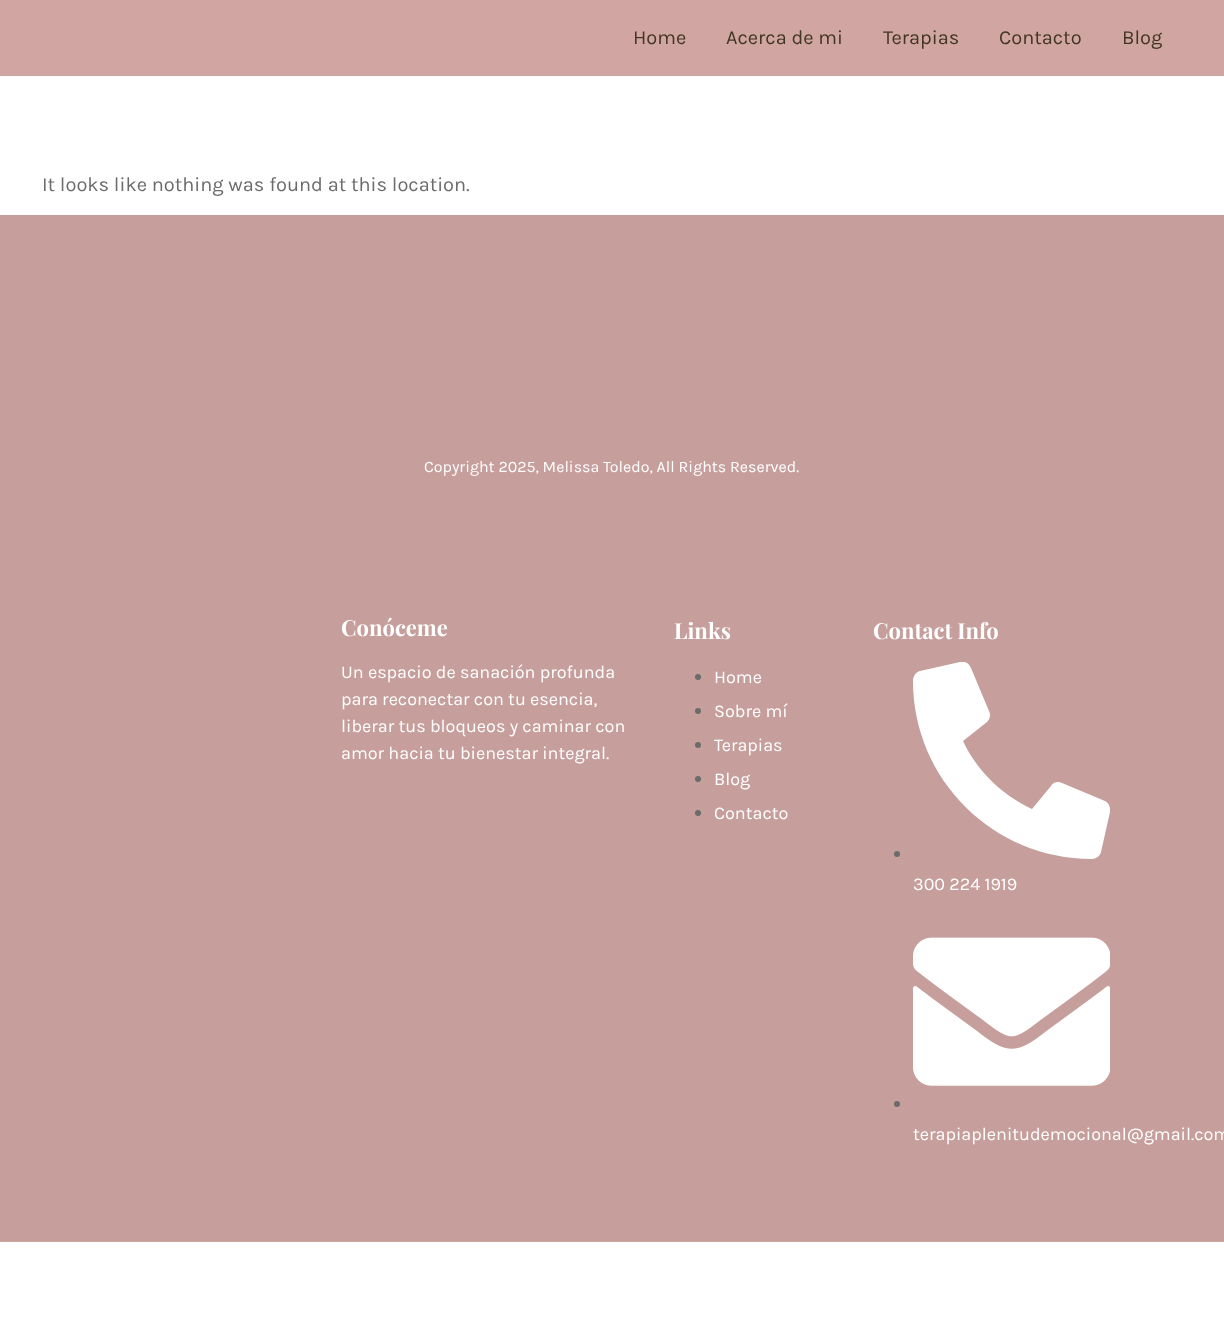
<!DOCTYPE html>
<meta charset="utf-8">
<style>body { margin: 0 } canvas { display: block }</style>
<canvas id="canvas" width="1224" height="1340"></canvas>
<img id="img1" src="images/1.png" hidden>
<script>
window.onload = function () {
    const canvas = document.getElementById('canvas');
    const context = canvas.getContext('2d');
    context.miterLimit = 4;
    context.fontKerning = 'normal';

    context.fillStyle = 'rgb(255, 255, 255)';
    context.fillRect(0, 0, 1224, 1340);
    context.fillStyle = 'rgb(209, 165, 162)';
    context.fillRect(0, 0, 1224, 76);
    context.fillStyle = 'rgb(198, 158, 156)';
    context.fillRect(0, 215, 1224, 1026);
    context.fillStyle = 'rgb(204, 168, 160)';
    context.fillRect(0, 1241, 1224, 1);
    context.fillStyle = 'rgb(107, 107, 107)';
    context.beginPath();
    context.arc(698, 677, 3, 0, 2 * Math.PI);
    context.fill();
    context.beginPath();
    context.arc(698, 711, 3, 0, 2 * Math.PI);
    context.fill();
    context.beginPath();
    context.arc(698, 745, 3, 0, 2 * Math.PI);
    context.fill();
    context.beginPath();
    context.arc(698, 779, 3, 0, 2 * Math.PI);
    context.fill();
    context.beginPath();
    context.arc(698, 813, 3, 0, 2 * Math.PI);
    context.fill();
    context.beginPath();
    context.arc(897, 854, 3, 0, 2 * Math.PI);
    context.fill();
    context.save();
    context.beginPath();
    context.rect(913, 662, 197, 198);
    context.clip();
    context.fillStyle = 'rgb(255, 255, 255)';
    context.beginPath();
    context.moveTo(1105, 801);
    context.lineTo(1062, 783);
    context.bezierCurveTo(1058, 781, 1053, 782, 1051, 786);
    context.lineTo(1032, 809);
    context.bezierCurveTo(1002, 795, 977, 771, 963, 741);
    context.lineTo(987, 722);
    context.bezierCurveTo(990, 719, 991, 715, 989, 711);
    context.lineTo(971, 668);
    context.bezierCurveTo(969, 663, 965, 661, 960, 662);
    context.lineTo(920, 671);
    context.bezierCurveTo(916, 672, 913, 676, 913, 681);
    context.bezierCurveTo(913, 779, 993, 859, 1092, 859);
    context.bezierCurveTo(1096, 859, 1100, 856, 1101, 852);
    context.lineTo(1110, 812);
    context.bezierCurveTo(1111, 808, 1109, 803, 1105, 801);
    context.closePath();
    context.fill();
    context.restore();
    context.drawImage(document.getElementById('img1'), 913, 937, 197, 149);
    context.beginPath();
    context.arc(897, 1104, 3, 0, 2 * Math.PI);
    context.fill();
    context.font = '20px Karla';
    context.fillStyle = 'rgb(65, 54, 37)';
    context.fillText('Home', 633, 44);
    context.fillText('Acerca de mi', 726, 44);
    context.fillText('Terapias', 883, 44);
    context.fillText('Contacto', 999, 44);
    context.fillText('Blog', 1122, 44);
    context.fillStyle = 'rgb(107, 107, 107)';
    context.fillText('It looks like nothing was found at this location.', 42, 191);
    context.font = '16px Karla';
    context.fillStyle = 'rgb(255, 255, 255)';
    context.fillText('Copyright 2025, Melissa Toledo, All Rights Reserved.', 424, 472);
    context.font = 'bold 22px Playfair Display';
    context.fillText('Conóceme', 341, 636);
    context.font = '18px Karla';
    context.fillText('Un espacio de sanación profunda', 341, 678);
    context.fillText('para reconectar con tu esencia,', 341, 705);
    context.fillText('liberar tus bloqueos y caminar con', 341, 732);
    context.fillText('amor hacia tu bienestar integral.', 341, 759);
    context.font = 'bold 22px Playfair Display';
    context.fillText('Links', 674, 639);
    context.font = '18px Karla';
    context.fillText('Home', 714, 683);
    context.fillText('Sobre mí', 714, 717);
    context.fillText('Terapias', 714, 751);
    context.fillText('Blog', 714, 785);
    context.fillText('Contacto', 714, 819);
    context.font = 'bold 22px Playfair Display';
    context.fillText('Contact Info', 873, 639);
    context.font = '18px Karla';
    context.fillText('300 224 1919', 913, 890);
    context.fillText('terapiaplenitudemocional@gmail.com', 913, 1140);
};
</script>
